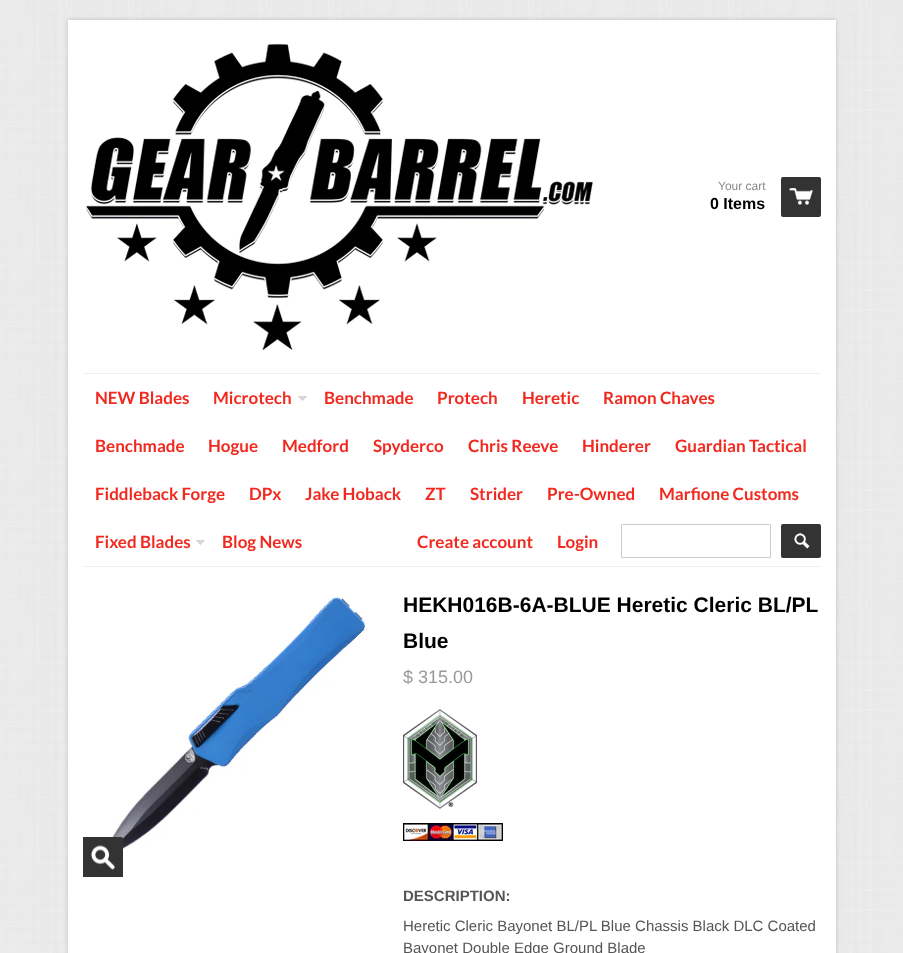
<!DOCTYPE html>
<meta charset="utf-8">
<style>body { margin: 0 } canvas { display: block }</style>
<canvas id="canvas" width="903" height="953"></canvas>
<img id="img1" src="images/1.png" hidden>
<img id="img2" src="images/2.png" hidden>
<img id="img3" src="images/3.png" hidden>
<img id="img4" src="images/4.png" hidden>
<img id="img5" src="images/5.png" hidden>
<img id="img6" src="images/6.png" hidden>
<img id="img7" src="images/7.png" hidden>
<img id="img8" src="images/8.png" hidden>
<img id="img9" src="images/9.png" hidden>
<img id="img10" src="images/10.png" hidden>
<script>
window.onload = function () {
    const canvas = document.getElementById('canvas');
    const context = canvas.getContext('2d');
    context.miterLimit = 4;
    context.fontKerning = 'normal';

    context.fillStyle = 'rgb(255, 255, 255)';
    context.fillRect(0, 0, 903, 953);
    context.drawImage(document.getElementById('img1'), 0, 0, 903, 20);
    context.drawImage(document.getElementById('img2'), 0, 20, 903, 933);
    context.fillStyle = 'rgba(0, 0, 0, 0.2)';
    context.filter = 'blur(2px)';
    context.beginPath();
    context.rect(68, 20, 768, 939);
    context.fill();
    context.filter = 'none';
    context.fillStyle = 'rgb(255, 255, 255)';
    context.fillRect(68, 20, 768, 933);
    context.drawImage(document.getElementById('img3'), 86, 43, 507, 307);
    context.fillStyle = 'rgb(51, 51, 51)';
    context.beginPath();
    context.roundRect(781, 177, 40, 40, 2);
    context.fill();
    context.drawImage(document.getElementById('img4'), 789, 188, 24, 17);
    context.fillStyle = 'rgb(240, 240, 240)';
    context.fillRect(83, 373, 738, 1);
    context.fillRect(83, 566, 738, 1);
    context.drawImage(document.getElementById('img5'), 298, 396, 9, 5);
    context.drawImage(document.getElementById('img5'), 196, 540, 9, 5);
    context.beginPath();
    context.roundRect(621.5, 524.5, 149, 33, 0.5);
    context.strokeStyle = 'rgb(204, 204, 204)';
    context.stroke();
    context.fillStyle = 'rgb(51, 51, 51)';
    context.beginPath();
    context.roundRect(781, 524, 40, 34, 2);
    context.fill();
    context.drawImage(document.getElementById('img6'), 794, 533, 16, 16);
    context.drawImage(document.getElementById('img7'), 99, 597, 270, 265);
    context.beginPath();
    context.roundRect(83, 837, 40, 40, [0, 2, 0, 0]);
    context.fill();
    context.drawImage(document.getElementById('img8'), 91, 845, 24, 25);
    context.drawImage(document.getElementById('img9'), 403, 709, 74, 100);
    context.drawImage(document.getElementById('img10'), 403, 823, 100, 18);
    context.font = '12px Liberation Sans';
    context.fillStyle = 'rgb(136, 136, 136)';
    context.fillText('Your cart', 718, 190);
    context.font = 'bold 16px Liberation Sans';
    context.fillStyle = 'rgb(0, 0, 0)';
    context.fillText('0 Items', 710, 209);
    context.font = 'bold 17px Lato';
    context.fillStyle = 'rgb(241, 41, 31)';
    context.fillText('NEW Blades', 95, 404);
    context.fillText('Microtech', 213, 404);
    context.fillText('Benchmade', 324, 404);
    context.fillText('Protech', 437, 404);
    context.fillText('Heretic', 522, 404);
    context.fillText('Ramon Chaves', 603, 404);
    context.fillText('Benchmade', 95, 452);
    context.fillText('Hogue', 208, 452);
    context.fillText('Medford', 282, 452);
    context.fillText('Spyderco', 373, 452);
    context.fillText('Chris Reeve', 468, 452);
    context.fillText('Hinderer', 582, 452);
    context.fillText('Guardian Tactical', 675, 452);
    context.fillText('Fiddleback Forge', 95, 500);
    context.fillText('DPx', 249, 500);
    context.fillText('Jake Hoback', 305, 500);
    context.fillText('ZT', 425, 500);
    context.fillText('Strider', 470, 500);
    context.fillText('Pre-Owned', 547, 500);
    context.fillText('Marfione Customs', 659, 500);
    context.fillText('Fixed Blades', 95, 548);
    context.fillText('Blog News', 222, 548);
    context.fillText('Create account', 417, 548);
    context.fillText('Login', 557, 548);
    context.font = 'bold 21px Liberation Sans';
    context.fillStyle = 'rgb(0, 0, 0)';
    context.fillText('HEKH016B-6A-BLUE Heretic Cleric BL/PL', 403, 612);
    context.fillText('Blue', 403, 648);
    context.font = '18px Liberation Sans';
    context.fillStyle = 'rgb(153, 153, 153)';
    context.fillText('$ 315.00', 403, 683);
    context.font = 'bold 15px Liberation Sans';
    context.fillStyle = 'rgb(85, 85, 85)';
    context.fillText('DESCRIPTION:', 403, 901);
    context.font = '15px Liberation Sans';
    context.fillText('Heretic Cleric Bayonet BL/PL Blue Chassis Black DLC Coated', 403, 931);
    context.fillText('Bayonet Double Edge Ground Blade', 403, 953);
};
</script>
